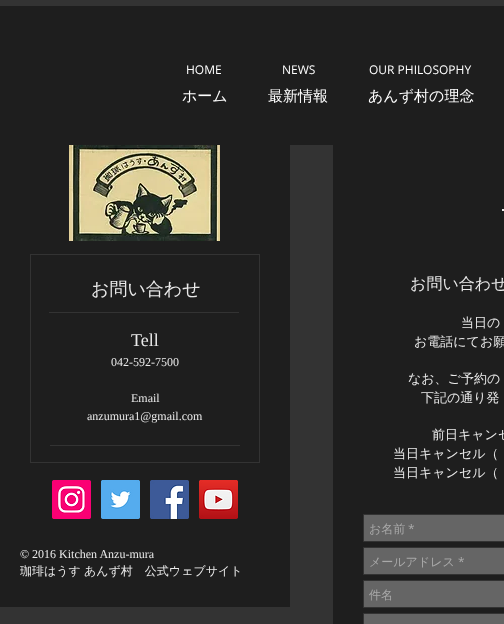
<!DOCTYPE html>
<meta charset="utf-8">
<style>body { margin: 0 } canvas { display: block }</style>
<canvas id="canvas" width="504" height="624"></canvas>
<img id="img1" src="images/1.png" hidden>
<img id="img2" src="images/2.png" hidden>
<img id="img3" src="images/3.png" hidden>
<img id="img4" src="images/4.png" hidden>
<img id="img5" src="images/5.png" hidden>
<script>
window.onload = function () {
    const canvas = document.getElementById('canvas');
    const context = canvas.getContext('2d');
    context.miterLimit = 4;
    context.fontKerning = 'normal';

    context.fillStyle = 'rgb(51, 51, 51)';
    context.fillRect(0, 0, 504, 624);
    context.fillStyle = 'rgb(30, 30, 30)';
    context.fillRect(0, 6, 504, 139);
    context.fillRect(0, 145, 290, 462);
    context.drawImage(document.getElementById('img1'), 69, 145, 151, 96);
    context.strokeStyle = 'rgb(51, 51, 51)';
    context.strokeRect(30.5, 254.5, 229, 208);
    context.fillStyle = 'rgb(51, 51, 51)';
    context.fillRect(49, 312, 190, 1);
    context.fillRect(50, 445, 190, 1);
    context.drawImage(document.getElementById('img2'), 52, 480, 39, 39);
    context.drawImage(document.getElementById('img3'), 101, 480, 39, 39);
    context.drawImage(document.getElementById('img4'), 150, 480, 39, 39);
    context.drawImage(document.getElementById('img5'), 199, 480, 39, 39);
    context.fillStyle = 'rgb(30, 30, 30)';
    context.fillRect(333, 145, 171, 479);
    context.fillStyle = 'rgb(234, 234, 234)';
    context.fillRect(502, 209, 2, 2);
    context.fillStyle = 'rgb(101, 101, 101)';
    context.beginPath();
    context.rect(363.5, 514.5, 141, 27);
    context.fill();
    context.stroke();
    context.beginPath();
    context.rect(363.5, 547.5, 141, 27);
    context.fill();
    context.stroke();
    context.beginPath();
    context.rect(363.5, 580.5, 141, 27);
    context.fill();
    context.stroke();
    context.beginPath();
    context.rect(363.5, 613.5, 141, 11);
    context.fill();
    context.stroke();
    context.font = '12px Open Sans';
    context.fillStyle = 'rgb(255, 255, 255)';
    context.fillText('HOME', 186, 74);
    context.fillText('NEWS', 282, 74);
    context.fillText('OUR PHILOSOPHY', 369, 74);
    context.font = '500 15px WenQuanYi Zen Hei';
    context.fillText('ホーム', 182, 101);
    context.fillText('最新情報', 268, 101);
    context.fillText('あんず村の理念', 368, 101);
    context.font = '500 18px WenQuanYi Zen Hei';
    context.fillStyle = 'rgb(234, 234, 234)';
    context.fillText('お問い合わせ', 91, 295);
    context.font = '18px Liberation Serif';
    context.fillText('Tell', 131, 346);
    context.font = '12px Liberation Serif';
    context.fillText('042-592-7500', 111, 366);
    context.fillText('Email', 131, 402);
    context.fillText('anzumura1@gmail.com', 87, 420);
    context.fillText('© 2016 Kitchen Anzu-mura', 20, 558);
    context.font = '500 12px WenQuanYi Zen Hei';
    context.fillText('珈琲はうす', 20, 575);
    context.fillText('あんず村　公式ウェブサイト', 84, 575);
    context.font = '500 16px WenQuanYi Zen Hei';
    context.fillText('お問い合わせ', 410, 289);
    context.font = '500 13px WenQuanYi Zen Hei';
    context.fillText('当日の', 461, 327);
    context.fillText('お電話にてお願', 414, 346);
    context.fillText('なお、ご予約の', 408, 383);
    context.fillText('下記の通り発', 421, 402);
    context.fillText('前日キャンセ', 432, 439);
    context.fillText('当日キャンセル（', 393, 458);
    context.fillText('当日キャンセル（', 393, 477);
    context.font = '500 12px WenQuanYi Zen Hei';
    context.fillStyle = 'rgb(169, 169, 169)';
    context.fillText('お名前', 369, 533);
    context.font = '12px Open Sans';
    context.fillText('*', 408, 533);
    context.font = '500 12px WenQuanYi Zen Hei';
    context.fillText('メールアドレス', 369, 566);
    context.font = '12px Open Sans';
    context.fillText('*', 458, 566);
    context.font = '500 12px WenQuanYi Zen Hei';
    context.fillText('件名', 369, 599);
};
</script>
